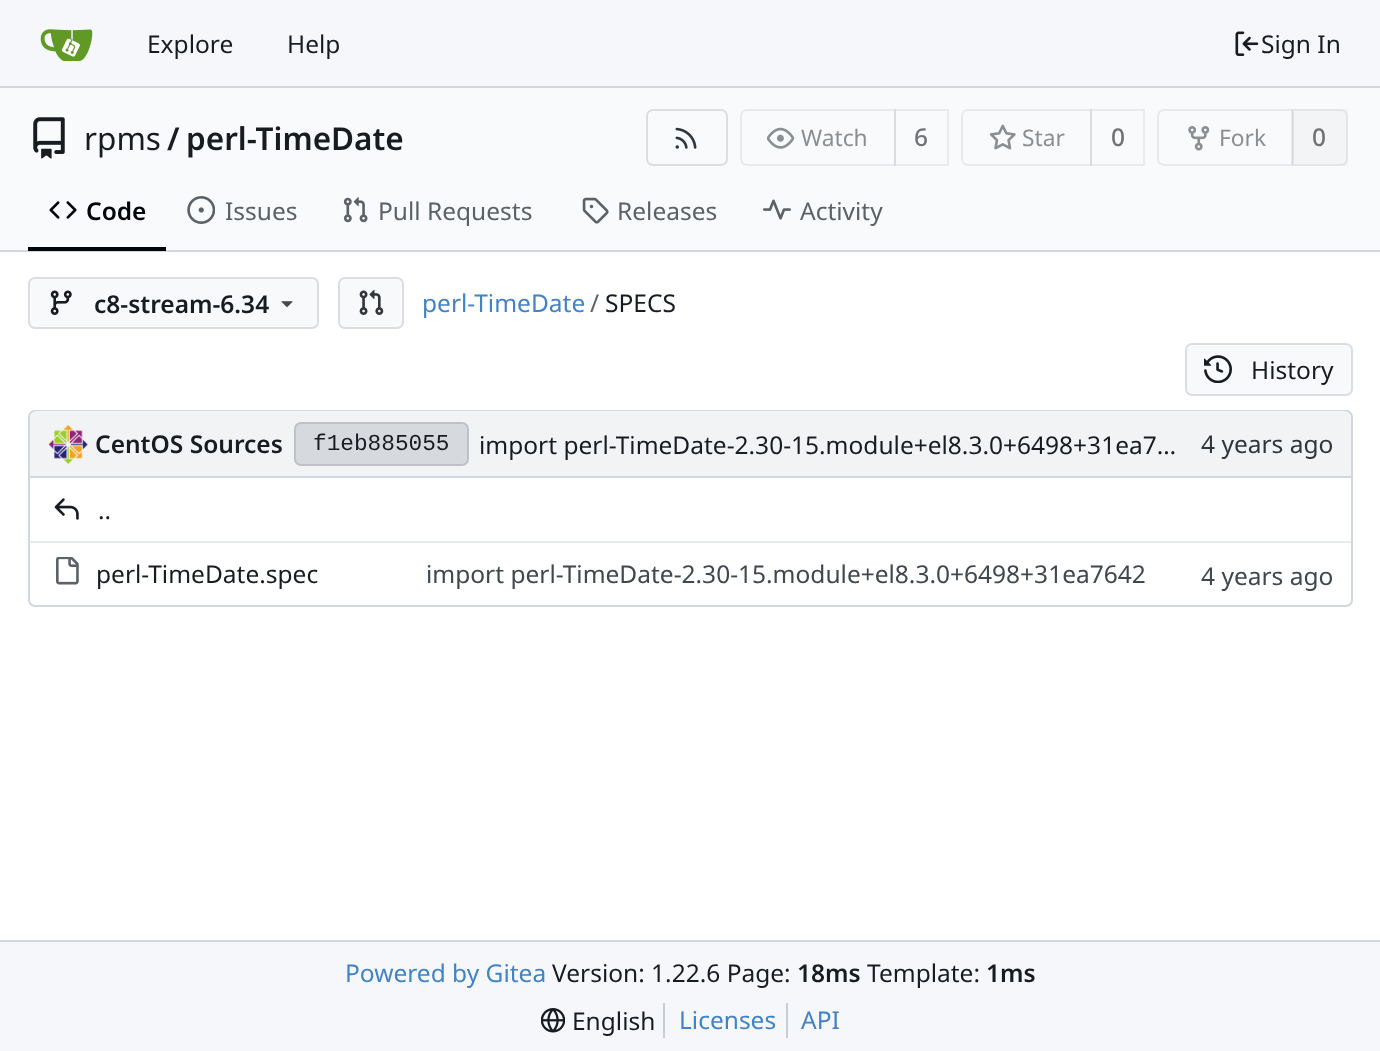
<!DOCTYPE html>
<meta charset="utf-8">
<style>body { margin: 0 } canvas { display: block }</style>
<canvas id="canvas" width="1380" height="1051"></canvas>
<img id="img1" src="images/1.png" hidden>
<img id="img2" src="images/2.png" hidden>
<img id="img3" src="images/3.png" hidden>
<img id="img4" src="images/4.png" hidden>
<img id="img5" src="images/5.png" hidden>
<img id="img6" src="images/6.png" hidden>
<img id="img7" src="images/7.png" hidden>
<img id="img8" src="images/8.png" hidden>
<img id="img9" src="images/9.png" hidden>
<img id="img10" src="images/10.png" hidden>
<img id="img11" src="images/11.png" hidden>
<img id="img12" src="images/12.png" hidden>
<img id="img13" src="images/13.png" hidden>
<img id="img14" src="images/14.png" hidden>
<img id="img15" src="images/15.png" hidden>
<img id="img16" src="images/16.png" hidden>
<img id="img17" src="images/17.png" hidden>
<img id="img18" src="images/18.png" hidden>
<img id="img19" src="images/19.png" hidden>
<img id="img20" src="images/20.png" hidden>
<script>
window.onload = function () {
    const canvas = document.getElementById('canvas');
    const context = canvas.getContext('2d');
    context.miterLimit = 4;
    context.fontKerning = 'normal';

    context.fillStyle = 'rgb(255, 255, 255)';
    context.fillRect(0, 0, 1380, 1051);
    context.fillStyle = 'rgb(246, 247, 250)';
    context.fillRect(0, 0, 1380, 86);
    context.fillStyle = 'rgb(208, 215, 222)';
    context.fillRect(0, 86, 1380, 2);
    context.drawImage(document.getElementById('img1'), 40, 29, 53, 32);
    context.drawImage(document.getElementById('img2'), 1235, 31, 24, 25);
    context.fillStyle = 'rgb(249, 250, 251)';
    context.fillRect(0, 88, 1380, 162);
    context.drawImage(document.getElementById('img3'), 33, 117, 32, 42);
    context.beginPath();
    context.roundRect(647, 110, 80, 55, 6);
    context.strokeStyle = 'rgb(221, 222, 225)';
    context.lineWidth = 2;
    context.stroke();
    context.drawImage(document.getElementById('img4'), 675, 127, 22, 22);
    context.beginPath();
    context.roundRect(741, 110, 154, 55, [6, 0, 0, 6]);
    context.strokeStyle = 'rgb(233, 234, 237)';
    context.stroke();
    context.drawImage(document.getElementById('img5'), 767, 127, 28, 22);
    context.strokeStyle = 'rgba(0, 0, 23, 0.06)';
    context.strokeRect(895, 110, 53, 55);
    context.beginPath();
    context.roundRect(962, 110, 129, 55, [6, 0, 0, 6]);
    context.strokeStyle = 'rgb(233, 234, 237)';
    context.stroke();
    context.drawImage(document.getElementById('img6'), 989, 124, 27, 26);
    context.strokeStyle = 'rgba(0, 0, 23, 0.06)';
    context.strokeRect(1091, 110, 53, 55);
    context.beginPath();
    context.roundRect(1158, 110, 134, 55, [6, 0, 0, 6]);
    context.strokeStyle = 'rgb(233, 234, 237)';
    context.stroke();
    context.drawImage(document.getElementById('img7'), 1188, 126, 22, 25);
    context.fillStyle = 'rgba(112, 113, 113, 0.04)';
    context.fillRect(1292, 109, 56, 57);
    context.beginPath();
    context.roundRect(1293, 110, 54, 55, [0, 6, 6, 0]);
    context.strokeStyle = 'rgba(112, 113, 126, 0.11)';
    context.stroke();
    context.fillStyle = 'rgb(208, 215, 222)';
    context.fillRect(0, 250, 1380, 2);
    context.fillStyle = 'rgb(1, 5, 10)';
    context.fillRect(28, 247, 138, 4);
    context.drawImage(document.getElementById('img8'), 49, 201, 28, 18);
    context.drawImage(document.getElementById('img9'), 187, 196, 28, 28);
    context.drawImage(document.getElementById('img10'), 343, 197, 25, 26);
    context.drawImage(document.getElementById('img11'), 582, 197, 27, 27);
    context.drawImage(document.getElementById('img12'), 763, 199, 28, 21);
    context.fillStyle = 'rgb(248, 249, 251)';
    context.beginPath();
    context.roundRect(28, 277, 291, 52, 7);
    context.fill();
    context.beginPath();
    context.roundRect(29, 278, 289, 50, 6);
    context.strokeStyle = 'rgba(0, 0, 23, 0.11)';
    context.stroke();
    context.drawImage(document.getElementById('img13'), 50, 290, 22, 25);
    context.drawImage(document.getElementById('img14'), 281, 301, 12, 7);
    context.beginPath();
    context.roundRect(338, 277, 66, 52, 7);
    context.fill();
    context.beginPath();
    context.roundRect(339, 278, 64, 50, 6);
    context.stroke();
    context.drawImage(document.getElementById('img15'), 359, 289, 25, 26);
    context.beginPath();
    context.roundRect(1185, 343, 168, 53, 7);
    context.fill();
    context.beginPath();
    context.roundRect(1186, 344, 166, 51, 6);
    context.stroke();
    context.drawImage(document.getElementById('img16'), 1204, 355, 28, 28);
    context.beginPath();
    context.roundRect(29, 411, 1323, 195, 6);
    context.strokeStyle = 'rgb(208, 215, 222)';
    context.stroke();
    context.fillStyle = 'rgb(241, 243, 245)';
    context.beginPath();
    context.roundRect(30, 411, 1162, 67, [7, 0, 0, 0]);
    context.fill();
    context.fillStyle = 'rgb(208, 215, 222)';
    context.fillRect(30, 476, 1162, 2);
    context.drawImage(document.getElementById('img17'), 48, 424, 40, 40);
    context.fillStyle = 'rgb(214, 218, 222)';
    context.beginPath();
    context.roundRect(294, 422, 175, 44, 7);
    context.fill();
    context.beginPath();
    context.roundRect(295, 423, 173, 42, 6);
    context.strokeStyle = 'rgba(0, 0, 23, 0.11)';
    context.stroke();
    context.fillStyle = 'rgb(241, 243, 245)';
    context.beginPath();
    context.roundRect(1192, 411, 159, 67, [0, 7, 0, 0]);
    context.fill();
    context.fillStyle = 'rgb(208, 215, 222)';
    context.fillRect(1192, 476, 159, 2);
    context.drawImage(document.getElementById('img18'), 54, 498, 25, 22);
    context.fillStyle = 'rgb(232, 235, 239)';
    context.fillRect(30, 541, 1321, 2);
    context.drawImage(document.getElementById('img19'), 56, 557, 23, 28);
    context.fillStyle = 'rgb(246, 247, 250)';
    context.fillRect(0, 942, 1380, 109);
    context.fillStyle = 'rgb(208, 215, 222)';
    context.fillRect(0, 940, 1380, 2);
    context.drawImage(document.getElementById('img20'), 541, 1008, 24, 25);
    context.fillStyle = 'rgb(199, 206, 213)';
    context.fillRect(663, 1003, 2, 35);
    context.fillRect(786, 1003, 2, 35);
    context.font = '24.5px Noto Sans';
    context.fillStyle = 'rgb(24, 28, 33)';
    context.fillText('Explore', 147, 53);
    context.fillText('Help', 287, 53);
    context.fillText('Sign In', 1261, 53);
    context.font = '31.5px Noto Sans';
    context.fillText('rpms', 84, 150);
    context.font = '600 31.5px Noto Sans';
    context.fillText('/', 167, 150);
    context.fillText('perl-TimeDate', 186, 150);
    context.font = '22.75px Noto Sans';
    context.fillStyle = 'rgb(138, 142, 145)';
    context.fillText('Watch', 801, 146);
    context.font = '500 24.5px Noto Sans';
    context.fillStyle = 'rgb(113, 115, 118)';
    context.fillText('6', 914, 146);
    context.font = '22.75px Noto Sans';
    context.fillStyle = 'rgb(138, 142, 145)';
    context.fillText('Star', 1022, 146);
    context.font = '500 24.5px Noto Sans';
    context.fillStyle = 'rgb(113, 115, 118)';
    context.fillText('0', 1111, 146);
    context.font = '22.75px Noto Sans';
    context.fillStyle = 'rgb(138, 142, 145)';
    context.fillText('Fork', 1219, 146);
    context.font = '500 24.5px Noto Sans';
    context.fillStyle = 'rgb(113, 115, 118)';
    context.fillText('0', 1312, 146);
    context.font = '600 24.5px Noto Sans';
    context.fillStyle = 'rgb(1, 5, 10)';
    context.fillText('Code', 86, 220);
    context.font = '24.5px Noto Sans';
    context.fillStyle = 'rgb(91, 97, 103)';
    context.fillText('Issues', 225, 220);
    context.fillText('Pull Requests', 378, 220);
    context.fillText('Releases', 617, 220);
    context.fillText('Activity', 800, 220);
    context.font = '600 24.5px Noto Sans';
    context.fillStyle = 'rgb(24, 28, 33)';
    context.fillText('c8-stream-6.34', 94, 313);
    context.font = '24.5px Noto Sans';
    context.fillStyle = 'rgb(65, 131, 196)';
    context.fillText('perl-TimeDate', 422, 312);
    context.fillStyle = 'rgb(91, 97, 103)';
    context.fillText('/', 590, 312);
    context.fillStyle = 'rgb(24, 28, 33)';
    context.fillText('SPECS', 605, 312);
    context.fillText('History', 1251, 379);
    context.font = '600 24.5px Noto Sans';
    context.fillText('CentOS Sources', 95, 453);
    context.font = '22.75px Liberation Mono';
    context.fillText('f1eb885055', 313, 450);
    context.font = '24.5px Noto Sans';
    context.fillText('import perl-TimeDate-2.30-15.module+el8.3.0+6498+31ea7…', 479, 454);
    context.fillStyle = 'rgb(48, 54, 59)';
    context.fillText('4 years ago', 1201, 453);
    context.fillStyle = 'rgb(24, 28, 33)';
    context.fillText('..', 98, 519);
    context.fillText('perl-TimeDate.spec', 96, 583);
    context.fillStyle = 'rgb(64, 71, 77)';
    context.fillText('import perl-TimeDate-2.30-15.module+el8.3.0+6498+31ea7642', 426, 583);
    context.fillText('4 years ago', 1201, 585);
    context.fillStyle = 'rgb(65, 131, 196)';
    context.fillText('Powered by Gitea', 345, 982);
    context.fillStyle = 'rgb(24, 28, 33)';
    context.fillText('Version: 1.22.6 Page:', 552, 982);
    context.font = '600 24.5px Noto Sans';
    context.fillText('18ms', 797, 982);
    context.font = '24.5px Noto Sans';
    context.fillText('Template:', 867, 982);
    context.font = '600 24.5px Noto Sans';
    context.fillText('1ms', 986, 982);
    context.font = '24.5px Noto Sans';
    context.fillText('English', 572, 1030);
    context.fillStyle = 'rgb(65, 131, 196)';
    context.fillText('Licenses', 679, 1029);
    context.fillText('API', 801, 1029);
};
</script>
